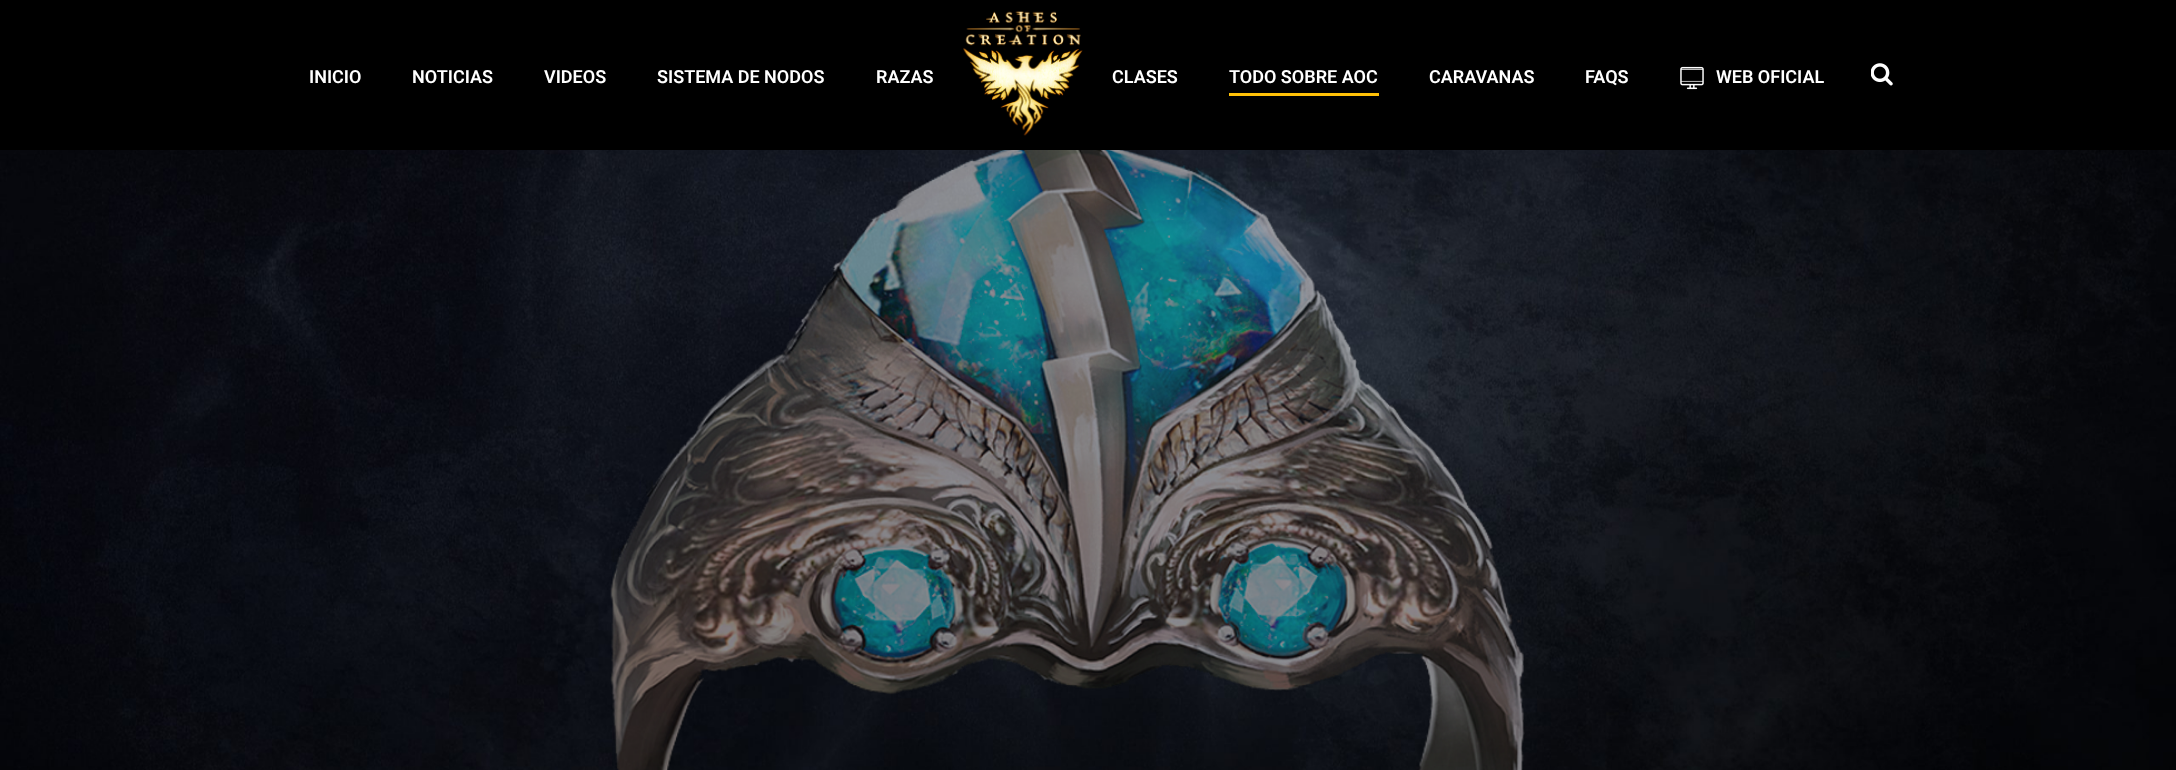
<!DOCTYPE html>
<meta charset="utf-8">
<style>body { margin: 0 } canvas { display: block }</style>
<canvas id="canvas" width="2176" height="770"></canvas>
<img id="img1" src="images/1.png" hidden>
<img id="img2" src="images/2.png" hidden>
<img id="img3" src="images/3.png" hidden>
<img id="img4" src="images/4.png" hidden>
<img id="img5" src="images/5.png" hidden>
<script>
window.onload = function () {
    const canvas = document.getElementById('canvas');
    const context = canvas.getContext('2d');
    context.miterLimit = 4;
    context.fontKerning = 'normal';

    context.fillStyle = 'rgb(255, 255, 255)';
    context.fillRect(0, 0, 2176, 770);
    context.drawImage(document.getElementById('img1'), 0, 150, 2176, 620);
    context.fillStyle = 'rgb(0, 0, 0)';
    context.fillRect(0, 0, 2176, 150);
    context.drawImage(document.getElementById('img2'), 963, 11, 120, 125);
    context.fillStyle = 'rgb(255, 193, 7)';
    context.fillRect(1229, 93, 150, 3);
    context.drawImage(document.getElementById('img3'), 1680, 66, 24, 24);
    context.drawImage(document.getElementById('img4'), 1871, 63, 22, 23);
    context.drawImage(document.getElementById('img5'), 610, 150, 915, 620);
    context.font = '600 18px Roboto';
    context.fillStyle = 'rgb(255, 255, 255)';
    context.fillText('INICIO', 309, 83);
    context.fillText('NOTICIAS', 412, 83);
    context.fillText('VIDEOS', 544, 83);
    context.fillText('SISTEMA DE NODOS', 657, 83);
    context.fillText('RAZAS', 876, 83);
    context.fillText('CLASES', 1112, 83);
    context.fillText('TODO SOBRE AOC', 1229, 83);
    context.fillText('CARAVANAS', 1429, 83);
    context.fillText('FAQS', 1585, 83);
    context.fillText('WEB OFICIAL', 1716, 83);
};
</script>
